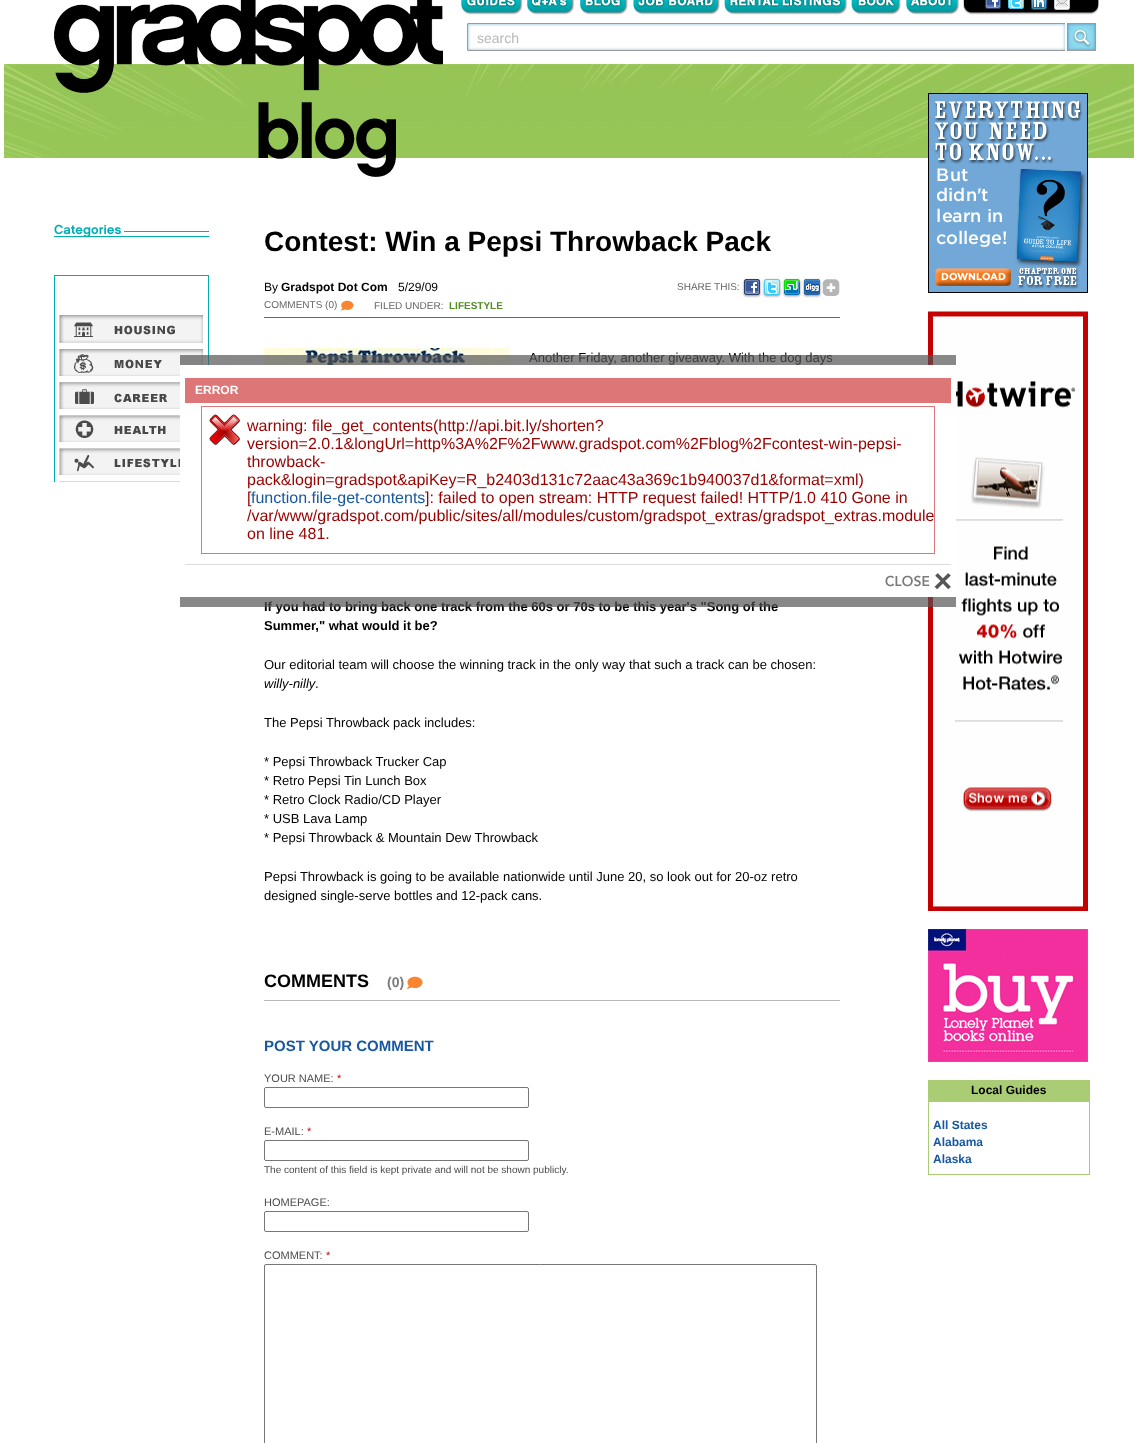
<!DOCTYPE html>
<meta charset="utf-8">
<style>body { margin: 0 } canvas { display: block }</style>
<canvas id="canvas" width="1138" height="1443"></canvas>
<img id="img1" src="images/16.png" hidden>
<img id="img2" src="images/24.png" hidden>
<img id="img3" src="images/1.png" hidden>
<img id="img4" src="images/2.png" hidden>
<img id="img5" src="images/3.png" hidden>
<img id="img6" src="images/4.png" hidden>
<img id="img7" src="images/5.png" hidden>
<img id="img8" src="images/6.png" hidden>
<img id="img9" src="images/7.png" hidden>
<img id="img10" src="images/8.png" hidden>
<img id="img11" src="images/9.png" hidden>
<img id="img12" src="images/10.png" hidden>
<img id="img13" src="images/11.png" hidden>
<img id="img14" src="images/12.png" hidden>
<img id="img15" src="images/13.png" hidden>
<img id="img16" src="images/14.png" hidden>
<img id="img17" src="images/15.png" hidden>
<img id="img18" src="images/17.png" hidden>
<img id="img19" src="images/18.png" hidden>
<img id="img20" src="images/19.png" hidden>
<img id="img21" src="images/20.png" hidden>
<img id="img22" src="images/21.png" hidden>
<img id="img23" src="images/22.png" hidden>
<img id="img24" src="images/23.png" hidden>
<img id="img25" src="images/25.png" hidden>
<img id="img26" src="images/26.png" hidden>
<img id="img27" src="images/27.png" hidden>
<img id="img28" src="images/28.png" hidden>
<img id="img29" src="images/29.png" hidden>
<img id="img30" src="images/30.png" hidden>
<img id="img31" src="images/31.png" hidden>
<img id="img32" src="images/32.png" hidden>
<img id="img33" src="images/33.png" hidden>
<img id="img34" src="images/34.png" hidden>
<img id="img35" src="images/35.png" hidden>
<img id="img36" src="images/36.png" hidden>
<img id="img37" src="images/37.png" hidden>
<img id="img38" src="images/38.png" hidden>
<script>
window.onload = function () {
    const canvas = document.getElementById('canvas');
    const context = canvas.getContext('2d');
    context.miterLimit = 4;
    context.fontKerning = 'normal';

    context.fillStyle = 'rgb(255, 255, 255)';
    context.fillRect(0, 0, 1138, 1443);
    context.drawImage(document.getElementById('img1'), 4, 64, 220, 94);
    context.drawImage(document.getElementById('img2'), 224, 64, 650, 113);
    context.drawImage(document.getElementById('img3'), 54, 0, 389, 93);
    context.drawImage(document.getElementById('img4'), 461, 0, 61, 15);
    context.drawImage(document.getElementById('img5'), 527, 0, 48, 15);
    context.drawImage(document.getElementById('img6'), 580, 0, 48, 15);
    context.drawImage(document.getElementById('img7'), 633, 0, 87, 15);
    context.drawImage(document.getElementById('img8'), 724, 0, 123, 15);
    context.drawImage(document.getElementById('img9'), 851, 0, 50, 15);
    context.drawImage(document.getElementById('img10'), 906, 0, 53, 15);
    context.drawImage(document.getElementById('img11'), 963, 0, 136, 15);
    context.drawImage(document.getElementById('img12'), 985, 0, 16, 9);
    context.drawImage(document.getElementById('img13'), 1008, 0, 16, 9);
    context.drawImage(document.getElementById('img14'), 1031, 0, 16, 10);
    context.drawImage(document.getElementById('img15'), 1054, 0, 16, 10);
    context.drawImage(document.getElementById('img16'), 467, 23, 598, 28);
    context.drawImage(document.getElementById('img17'), 1067, 23, 29, 28);
    context.drawImage(document.getElementById('img18'), 54, 224, 155, 14);
    context.save();
    context.beginPath();
    context.rect(54, 224, 155, 258);
    context.clip();
    context.strokeStyle = 'rgb(1, 174, 180)';
    context.strokeRect(54.5, 275.5, 154, 272);
    context.restore();
    context.drawImage(document.getElementById('img19'), 59, 315, 145, 28);
    context.drawImage(document.getElementById('img20'), 59, 349, 145, 27);
    context.drawImage(document.getElementById('img21'), 59, 382, 121, 27);
    context.drawImage(document.getElementById('img22'), 59, 415, 121, 27);
    context.drawImage(document.getElementById('img23'), 59, 448, 121, 27);
    context.drawImage(document.getElementById('img24'), 59, 481, 121, 1);
    context.fillStyle = 'rgb(102, 102, 102)';
    context.fillRect(264, 317, 576, 1);
    context.drawImage(document.getElementById('img25'), 742, 278, 20, 20);
    context.drawImage(document.getElementById('img26'), 762, 278, 20, 20);
    context.drawImage(document.getElementById('img27'), 782, 278, 20, 20);
    context.drawImage(document.getElementById('img28'), 802, 278, 20, 20);
    context.drawImage(document.getElementById('img29'), 822, 279, 18, 17);
    context.drawImage(document.getElementById('img30'), 340, 300, 14, 11);
    context.drawImage(document.getElementById('img31'), 264, 348, 245, 17);
    context.fillStyle = 'rgb(185, 185, 185)';
    context.fillRect(264, 1000, 576, 1);
    context.drawImage(document.getElementById('img32'), 406, 976, 17, 13);
    context.beginPath();
    context.roundRect(264.5, 1087.5, 264, 20, 1.5);
    context.strokeStyle = 'rgb(118, 118, 118)';
    context.stroke();
    context.beginPath();
    context.roundRect(264.5, 1140.5, 264, 20, 1.5);
    context.stroke();
    context.beginPath();
    context.roundRect(264.5, 1211.5, 264, 20, 1.5);
    context.stroke();
    context.beginPath();
    context.roundRect(264.5, 1264.5, 552, 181, 1.5);
    context.stroke();
    context.drawImage(document.getElementById('img33'), 874, 64, 260, 94);
    context.drawImage(document.getElementById('img34'), 928, 93, 160, 200);
    context.drawImage(document.getElementById('img35'), 928, 311, 160, 600);
    context.drawImage(document.getElementById('img36'), 928, 929, 160, 133);
    context.strokeStyle = 'rgb(170, 204, 117)';
    context.strokeRect(928.5, 1080.5, 161, 94);
    context.fillStyle = 'rgb(170, 204, 117)';
    context.fillRect(929, 1081, 160, 21);
    context.fillStyle = 'rgb(255, 255, 255)';
    context.fillRect(180, 365, 776, 232);
    context.fillStyle = 'rgb(221, 119, 119)';
    context.fillRect(185, 378, 766, 25);
    context.drawImage(document.getElementById('img37'), 209, 414, 31, 31);
    context.strokeStyle = 'rgb(221, 119, 119)';
    context.strokeRect(201.5, 406.5, 733, 147);
    context.fillStyle = 'rgb(221, 221, 221)';
    context.fillRect(185, 564, 766, 1);
    context.drawImage(document.getElementById('img38'), 885, 573, 66, 17);
    context.font = '14px Liberation Sans';
    context.fillStyle = 'rgb(183, 183, 183)';
    context.fillText('search', 477, 43);
    context.font = 'bold 28px Liberation Sans';
    context.fillStyle = 'rgb(0, 0, 0)';
    context.fillText('Contest: Win a Pepsi Throwback Pack', 264, 251);
    context.font = '12px Liberation Sans';
    context.fillText('By', 264, 291);
    context.font = 'bold 12px Liberation Sans';
    context.fillText('Gradspot Dot Com', 281, 291);
    context.font = '12px Liberation Sans';
    context.fillText('5/29/09', 398, 291);
    context.font = '10px Liberation Sans';
    context.fillStyle = 'rgb(101, 101, 101)';
    context.fillText('SHARE THIS:', 677, 290);
    context.fillText('COMMENTS (0)', 264, 308);
    context.fillText('FILED UNDER:', 374, 309);
    context.font = 'bold 10px Liberation Sans';
    context.fillStyle = 'rgb(83, 140, 33)';
    context.fillText('LIFESTYLE', 449, 309);
    context.font = '13px Liberation Sans';
    context.fillStyle = 'rgb(0, 0, 0)';
    context.fillText('Another Friday, another giveaway. With the dog days', 529, 362);
    context.font = 'bold 13px Liberation Sans';
    context.fillText('If you had to bring back one track from the 60s or 70s to be this year\'s "Song of the', 264, 611);
    context.fillText('Summer," what would it be?', 264, 630);
    context.font = '13px Liberation Sans';
    context.fillText('Our editorial team will choose the winning track in the only way that such a track can be chosen:', 264, 669);
    context.font = 'italic 13px Liberation Sans';
    context.fillText('willy-nilly', 264, 688);
    context.font = '13px Liberation Sans';
    context.fillText('.', 315, 688);
    context.fillText('The Pepsi Throwback pack includes:', 264, 727);
    context.fillText('* Pepsi Throwback Trucker Cap', 264, 766);
    context.fillText('* Retro Pepsi Tin Lunch Box', 264, 785);
    context.fillText('* Retro Clock Radio/CD Player', 264, 804);
    context.fillText('* USB Lava Lamp', 264, 823);
    context.fillText('* Pepsi Throwback & Mountain Dew Throwback', 264, 842);
    context.fillText('Pepsi Throwback is going to be available nationwide until June 20, so look out for 20-oz retro', 264, 881);
    context.fillText('designed single-serve bottles and 12-pack cans.', 264, 900);
    context.font = 'bold 18px Liberation Sans';
    context.fillText('COMMENTS', 264, 987);
    context.font = 'bold 14px Liberation Sans';
    context.fillStyle = 'rgb(123, 123, 123)';
    context.fillText('(0)', 387, 987);
    context.font = 'bold 15px Liberation Sans';
    context.fillStyle = 'rgb(23, 88, 161)';
    context.fillText('POST YOUR COMMENT', 264, 1051);
    context.font = '11px Liberation Sans';
    context.fillStyle = 'rgb(74, 74, 74)';
    context.fillText('YOUR NAME:', 264, 1082);
    context.fillStyle = 'rgb(204, 0, 0)';
    context.fillText('*', 337, 1082);
    context.fillStyle = 'rgb(74, 74, 74)';
    context.fillText('E-MAIL:', 264, 1135);
    context.fillStyle = 'rgb(204, 0, 0)';
    context.fillText('*', 307, 1135);
    context.font = '10px Liberation Sans';
    context.fillStyle = 'rgb(74, 74, 74)';
    context.fillText('The content of this field is kept private and will not be shown publicly.', 264, 1173);
    context.font = '11px Liberation Sans';
    context.fillText('HOMEPAGE:', 264, 1206);
    context.fillText('COMMENT:', 264, 1259);
    context.fillStyle = 'rgb(204, 0, 0)';
    context.fillText('*', 326, 1259);
    context.font = 'bold 12px Liberation Sans';
    context.fillStyle = 'rgb(0, 0, 0)';
    context.fillText('Local Guides', 971, 1094);
    context.fillStyle = 'rgb(23, 88, 161)';
    context.fillText('All States', 933, 1129);
    context.fillText('Alabama', 933, 1146);
    context.fillText('Alaska', 933, 1163);
    context.fillStyle = 'rgba(83, 83, 83, 0.69)';
    context.fillRect(180, 355, 776, 10);
    context.fillStyle = 'rgb(255, 255, 255)';
    context.fillText('ERROR', 195, 394);
    context.font = '16px Liberation Sans';
    context.fillStyle = 'rgb(153, 0, 0)';
    context.fillText('warning: file_get_contents(http://api.bit.ly/shorten?', 247, 431);
    context.fillText('version=2.0.1&longUrl=http%3A%2F%2Fwww.gradspot.com%2Fblog%2Fcontest-win-pepsi-', 247, 449);
    context.fillText('throwback-', 247, 467);
    context.fillText('pack&login=gradspot&apiKey=R_b2403d131c72aac43a369c1b940037d1&format=xml)', 247, 485);
    context.fillText('[', 247, 503);
    context.fillStyle = 'rgb(23, 88, 161)';
    context.fillText('function.file-get-contents', 251, 503);
    context.fillStyle = 'rgb(153, 0, 0)';
    context.fillText(']: failed to open stream: HTTP request failed! HTTP/1.0 410 Gone in', 425, 503);
    context.fillText('/var/www/gradspot.com/public/sites/all/modules/custom/gradspot_extras/gradspot_extras.module', 247, 521);
    context.fillText('on line 481.', 247, 539);
    context.fillStyle = 'rgba(83, 83, 83, 0.69)';
    context.fillRect(180, 597, 776, 10);
};
</script>
